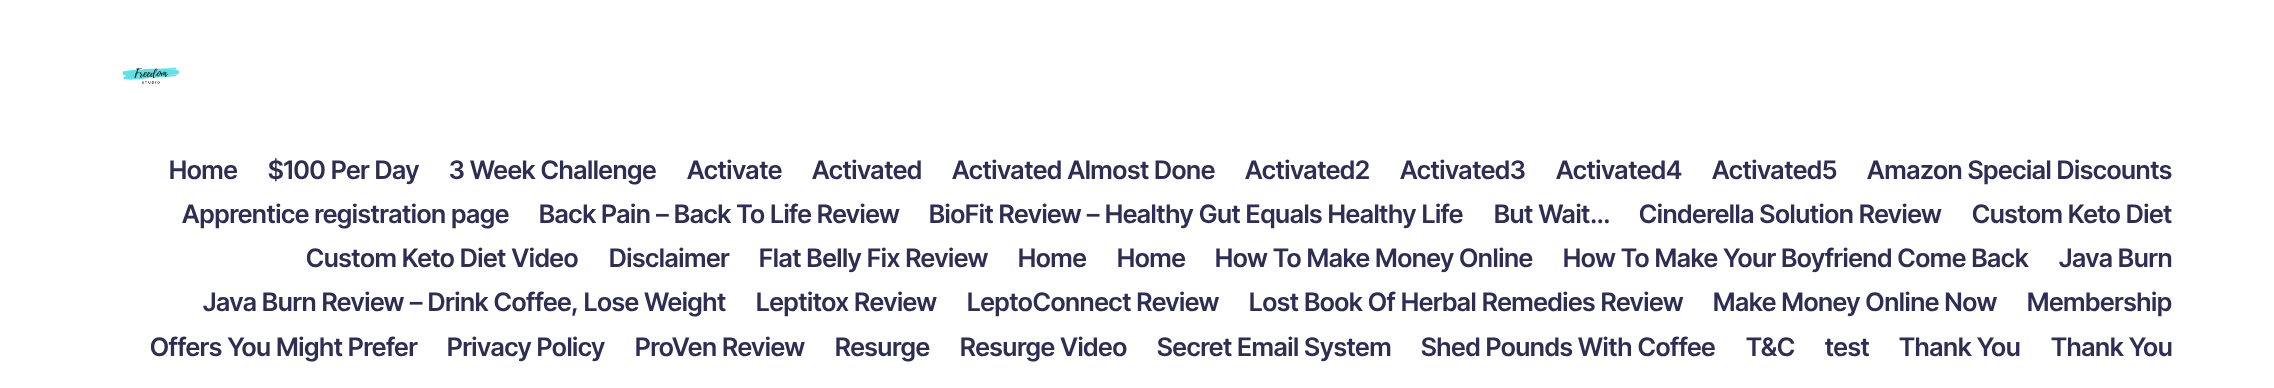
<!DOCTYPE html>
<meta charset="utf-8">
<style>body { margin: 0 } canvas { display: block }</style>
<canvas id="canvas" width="2274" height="388"></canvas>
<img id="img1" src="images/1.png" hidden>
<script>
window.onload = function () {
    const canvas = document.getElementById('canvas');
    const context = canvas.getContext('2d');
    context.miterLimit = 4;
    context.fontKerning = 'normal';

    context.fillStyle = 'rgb(255, 255, 255)';
    context.fillRect(0, 0, 2274, 388);
    context.drawImage(document.getElementById('img1'), 122, 67, 57, 17);
    context.font = '600 25.5px Inter Tight';
    context.fillStyle = 'rgb(48, 45, 85)';
    context.fillText('Home', 169, 179);
    context.fillText('$100 Per Day', 268, 179);
    context.fillText('3 Week Challenge', 449, 179);
    context.fillText('Activate', 687, 179);
    context.fillText('Activated', 812, 179);
    context.fillText('Activated Almost Done', 952, 179);
    context.fillText('Activated2', 1245, 179);
    context.fillText('Activated3', 1400, 179);
    context.fillText('Activated4', 1556, 179);
    context.fillText('Activated5', 1712, 179);
    context.fillText('Amazon Special Discounts', 1867, 179);
    context.fillText('Apprentice registration page', 182, 223);
    context.fillText('Back Pain – Back To Life Review', 539, 223);
    context.fillText('BioFit Review – Healthy Gut Equals Healthy Life', 929, 223);
    context.fillText('But Wait…', 1494, 223);
    context.fillText('Cinderella Solution Review', 1639, 223);
    context.fillText('Custom Keto Diet', 1972, 223);
    context.fillText('Custom Keto Diet Video', 306, 267);
    context.fillText('Disclaimer', 609, 267);
    context.fillText('Flat Belly Fix Review', 759, 267);
    context.fillText('Home', 1018, 267);
    context.fillText('Home', 1117, 267);
    context.fillText('How To Make Money Online', 1215, 267);
    context.fillText('How To Make Your Boyfriend Come Back', 1563, 267);
    context.fillText('Java Burn', 2059, 267);
    context.fillText('Java Burn Review – Drink Coffee, Lose Weight', 203, 311);
    context.fillText('Leptitox Review', 756, 311);
    context.fillText('LeptoConnect Review', 967, 311);
    context.fillText('Lost Book Of Herbal Remedies Review', 1249, 311);
    context.fillText('Make Money Online Now', 1713, 311);
    context.fillText('Membership', 2027, 311);
    context.fillText('Offers You Might Prefer', 150, 356);
    context.fillText('Privacy Policy', 447, 356);
    context.fillText('ProVen Review', 635, 356);
    context.fillText('Resurge', 835, 356);
    context.fillText('Resurge Video', 960, 356);
    context.fillText('Secret Email System', 1157, 356);
    context.fillText('Shed Pounds With Coffee', 1421, 356);
    context.fillText('T&C', 1746, 356);
    context.fillText('test', 1825, 356);
    context.fillText('Thank You', 1899, 356);
    context.fillText('Thank You', 2051, 356);
};
</script>
